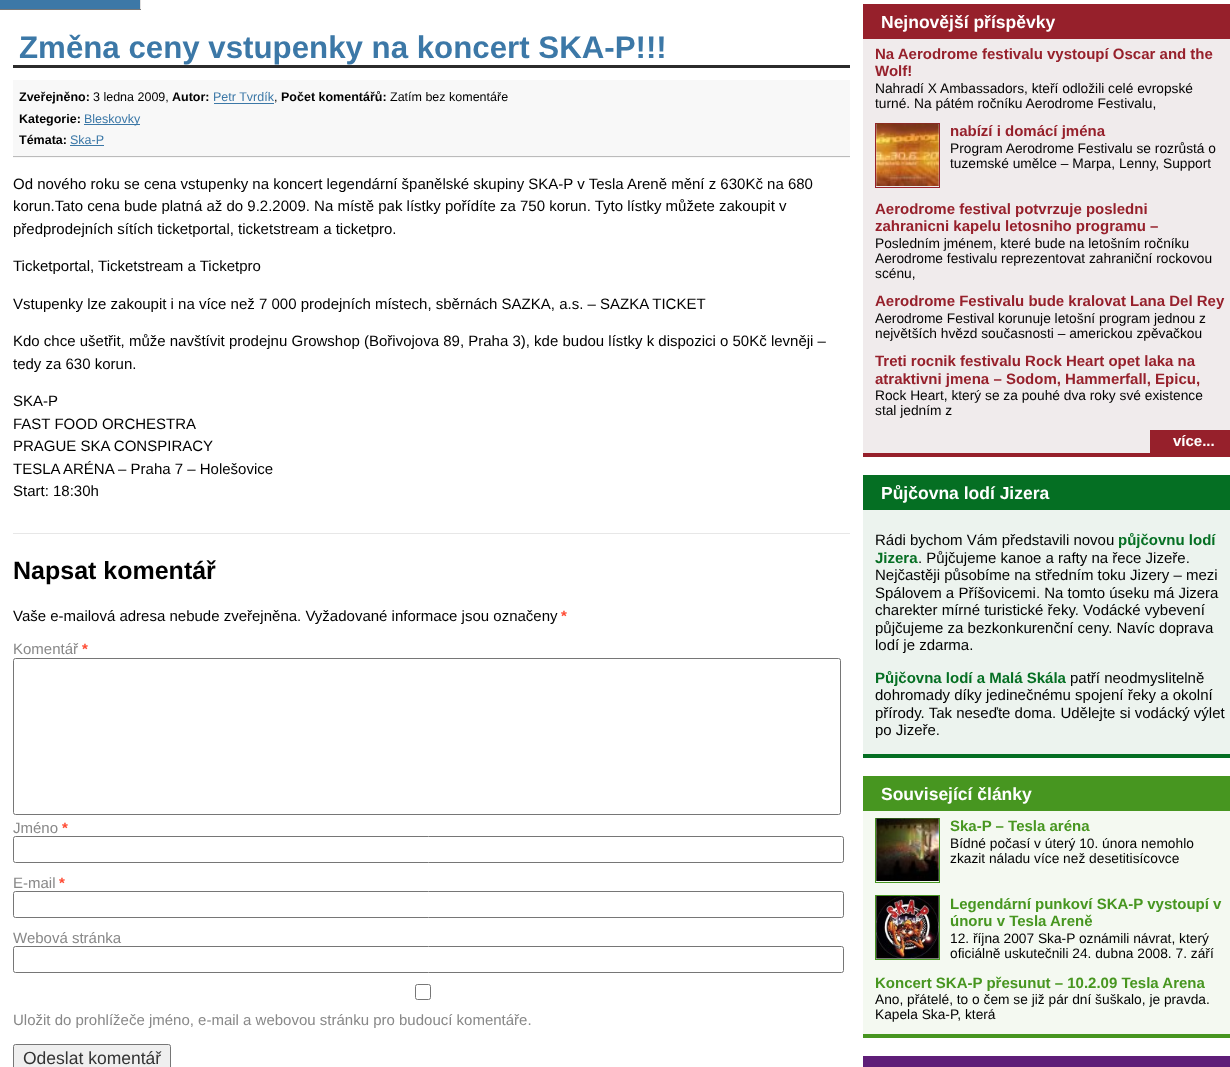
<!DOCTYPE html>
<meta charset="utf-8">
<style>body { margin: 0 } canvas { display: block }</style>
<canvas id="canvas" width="1230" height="1067"></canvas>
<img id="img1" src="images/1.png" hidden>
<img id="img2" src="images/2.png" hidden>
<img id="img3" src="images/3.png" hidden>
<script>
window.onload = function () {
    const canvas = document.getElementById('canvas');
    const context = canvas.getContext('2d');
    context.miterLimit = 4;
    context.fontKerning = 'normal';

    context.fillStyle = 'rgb(255, 255, 255)';
    context.fillRect(0, 0, 1230, 1067);
    context.fillStyle = 'rgb(225, 224, 224)';
    context.fillRect(140, 0, 1, 10);
    context.fillStyle = 'rgb(119, 119, 119)';
    context.fillRect(0, 9, 141, 1);
    context.fillStyle = 'rgb(60, 120, 167)';
    context.fillRect(0, 0, 140, 9);
    context.fillStyle = 'rgb(43, 43, 43)';
    context.fillRect(13, 65, 837, 3);
    context.fillStyle = 'rgb(248, 248, 248)';
    context.fillRect(13, 80, 837, 78);
    context.fillStyle = 'rgb(187, 187, 187)';
    context.fillRect(13, 156, 837, 1);
    context.fillStyle = 'rgb(60, 120, 167)';
    context.fillRect(214, 103, 60, 1);
    context.fillRect(84, 124, 56, 1);
    context.fillRect(70, 145, 34, 1);
    context.fillStyle = 'rgb(231, 231, 231)';
    context.fillRect(13, 533, 837, 1);
    context.beginPath();
    context.roundRect(13.5, 658.5, 827, 156, 2);
    context.strokeStyle = 'rgb(118, 118, 118)';
    context.stroke();
    context.beginPath();
    context.roundRect(13.5, 836.5, 830, 26, 2);
    context.stroke();
    context.beginPath();
    context.roundRect(13.5, 891.5, 830, 26, 2);
    context.stroke();
    context.beginPath();
    context.roundRect(13.5, 946.5, 830, 26, 2);
    context.stroke();
    context.beginPath();
    context.roundRect(415.5, 984.5, 15, 15, 2);
    context.stroke();
    context.fillStyle = 'rgb(239, 239, 239)';
    context.beginPath();
    context.roundRect(13.5, 1044.5, 157, 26, 2);
    context.fill();
    context.stroke();
    context.fillStyle = 'rgb(240, 235, 236)';
    context.fillRect(863, 39, 367, 414);
    context.fillStyle = 'rgb(150, 32, 43)';
    context.fillRect(863, 453, 367, 4);
    context.fillRect(863, 4, 367, 35);
    context.strokeStyle = 'rgb(150, 32, 43)';
    context.strokeRect(875.5, 123.5, 64, 64);
    context.drawImage(document.getElementById('img1'), 876, 123, 63, 63);
    context.fillRect(1150, 430, 80, 23);
    context.fillStyle = 'rgb(236, 243, 238)';
    context.fillRect(863, 510, 367, 244);
    context.fillStyle = 'rgb(5, 111, 35)';
    context.fillRect(863, 754, 367, 4);
    context.fillRect(863, 475, 367, 35);
    context.fillStyle = 'rgb(244, 249, 241)';
    context.fillRect(863, 811, 367, 223);
    context.fillStyle = 'rgb(71, 150, 32)';
    context.fillRect(863, 1034, 367, 4);
    context.fillRect(863, 776, 367, 35);
    context.strokeStyle = 'rgb(71, 150, 32)';
    context.strokeRect(875.5, 818.5, 64, 64);
    context.drawImage(document.getElementById('img2'), 876, 818, 63, 63);
    context.strokeRect(875.5, 895.5, 64, 64);
    context.drawImage(document.getElementById('img3'), 876, 896, 63, 63);
    context.fillStyle = 'rgb(95, 30, 120)';
    context.fillRect(863, 1056, 367, 11);
    context.font = 'bold 31.25px Liberation Sans';
    context.fillStyle = 'rgb(60, 120, 167)';
    context.fillText('Změna ceny vstupenky na koncert SKA-P!!!', 19, 58);
    context.font = 'bold 12.5px Liberation Sans';
    context.fillStyle = 'rgb(0, 0, 0)';
    context.fillText('Zveřejněno:', 19, 101);
    context.font = '12.5px Liberation Sans';
    context.fillText('3 ledna 2009,', 93, 101);
    context.font = 'bold 12.5px Liberation Sans';
    context.fillText('Autor:', 172, 101);
    context.font = '12.5px Liberation Sans';
    context.fillStyle = 'rgb(60, 120, 167)';
    context.fillText('Petr Tvrdík', 213, 101);
    context.fillStyle = 'rgb(0, 0, 0)';
    context.fillText(',', 274, 101);
    context.font = 'bold 12.5px Liberation Sans';
    context.fillText('Počet komentářů:', 281, 101);
    context.font = '12.5px Liberation Sans';
    context.fillText('Zatím bez komentáře', 390, 101);
    context.font = 'bold 12.5px Liberation Sans';
    context.fillText('Kategorie:', 19, 123);
    context.font = '12.5px Liberation Sans';
    context.fillStyle = 'rgb(60, 120, 167)';
    context.fillText('Bleskovky', 84, 123);
    context.font = 'bold 12.5px Liberation Sans';
    context.fillStyle = 'rgb(0, 0, 0)';
    context.fillText('Témata:', 19, 144);
    context.font = '12.5px Liberation Sans';
    context.fillStyle = 'rgb(60, 120, 167)';
    context.fillText('Ska-P', 70, 144);
    context.font = '15px Liberation Sans';
    context.fillStyle = 'rgb(0, 0, 0)';
    context.fillText('Od nového roku se cena vstupenky na koncert legendární španělské skupiny SKA-P v Tesla Areně mění z 630Kč na 680', 13, 189);
    context.fillText('korun.Tato cena bude platná až do 9.2.2009. Na místě pak lístky pořídíte za 750 korun. Tyto lístky můžete zakoupit v', 13, 211);
    context.fillText('předprodejních sítích ticketportal, ticketstream a ticketpro.', 13, 234);
    context.fillText('Ticketportal, Ticketstream a Ticketpro', 13, 271);
    context.fillText('Vstupenky lze zakoupit i na více než 7 000 prodejních místech, sběrnách SAZKA, a.s. – SAZKA TICKET', 13, 309);
    context.fillText('Kdo chce ušetřit, může navštívit prodejnu Growshop (Bořivojova 89, Praha 3), kde budou lístky k dispozici o 50Kč levněji –', 13, 346);
    context.fillText('tedy za 630 korun.', 13, 369);
    context.fillText('SKA-P', 13, 406);
    context.fillText('FAST FOOD ORCHESTRA', 13, 429);
    context.fillText('PRAGUE SKA CONSPIRACY', 13, 451);
    context.fillText('TESLA ARÉNA – Praha 7 – Holešovice', 13, 474);
    context.fillText('Start: 18:30h', 13, 496);
    context.font = 'bold 25px Liberation Sans';
    context.fillText('Napsat komentář', 13, 579);
    context.font = '15px Liberation Sans';
    context.fillText('Vaše e-mailová adresa nebude zveřejněna. Vyžadované informace jsou označeny', 13, 621);
    context.font = 'bold 15px Liberation Sans';
    context.fillStyle = 'rgb(255, 75, 51)';
    context.fillText('*', 561, 621);
    context.font = '15px Liberation Sans';
    context.fillStyle = 'rgb(136, 136, 136)';
    context.fillText('Komentář', 13, 654);
    context.font = 'bold 15px Liberation Sans';
    context.fillStyle = 'rgb(255, 75, 51)';
    context.fillText('*', 82, 654);
    context.font = '15px Liberation Sans';
    context.fillStyle = 'rgb(136, 136, 136)';
    context.fillText('Jméno', 13, 833);
    context.font = 'bold 15px Liberation Sans';
    context.fillStyle = 'rgb(255, 75, 51)';
    context.fillText('*', 62, 833);
    context.font = '15px Liberation Sans';
    context.fillStyle = 'rgb(136, 136, 136)';
    context.fillText('E-mail', 13, 888);
    context.font = 'bold 15px Liberation Sans';
    context.fillStyle = 'rgb(255, 75, 51)';
    context.fillText('*', 59, 888);
    context.font = '15px Liberation Sans';
    context.fillStyle = 'rgb(136, 136, 136)';
    context.fillText('Webová stránka', 13, 943);
    context.fillText('Uložit do prohlížeče jméno, e-mail a webovou stránku pro budoucí komentáře.', 13, 1025);
    context.font = '17.5px Liberation Sans';
    context.fillStyle = 'rgb(51, 51, 51)';
    context.fillText('Odeslat komentář', 23, 1064);
    context.font = 'bold 17.5px Liberation Sans';
    context.fillStyle = 'rgb(255, 255, 255)';
    context.fillText('Nejnovější příspěvky', 881, 28);
    context.font = 'bold 15px Liberation Sans';
    context.fillStyle = 'rgb(150, 32, 43)';
    context.fillText('Na Aerodrome festivalu vystoupí Oscar and the', 875, 59);
    context.fillText('Wolf!', 875, 76);
    context.font = '13.75px Liberation Sans';
    context.fillStyle = 'rgb(0, 0, 0)';
    context.fillText('Nahradí X Ambassadors, kteří odložili celé evropské', 875, 93);
    context.fillText('turné. Na pátém ročníku Aerodrome Festivalu,', 875, 108);
    context.font = 'bold 15px Liberation Sans';
    context.fillStyle = 'rgb(150, 32, 43)';
    context.fillText('nabízí i domácí jména', 950, 136);
    context.font = '13.75px Liberation Sans';
    context.fillStyle = 'rgb(0, 0, 0)';
    context.fillText('Program Aerodrome Festivalu se rozrůstá o', 950, 153);
    context.fillText('tuzemské umělce – Marpa, Lenny, Support', 950, 168);
    context.font = 'bold 15px Liberation Sans';
    context.fillStyle = 'rgb(150, 32, 43)';
    context.fillText('Aerodrome festival potvrzuje posledni', 875, 214);
    context.fillText('zahranicni kapelu letosniho programu –', 875, 231);
    context.font = '13.75px Liberation Sans';
    context.fillStyle = 'rgb(0, 0, 0)';
    context.fillText('Posledním jménem, které bude na letošním ročníku', 875, 248);
    context.fillText('Aerodrome festivalu reprezentovat zahraniční rockovou', 875, 263);
    context.fillText('scénu,', 875, 278);
    context.font = 'bold 15px Liberation Sans';
    context.fillStyle = 'rgb(150, 32, 43)';
    context.fillText('Aerodrome Festivalu bude kralovat Lana Del Rey', 875, 306);
    context.font = '13.75px Liberation Sans';
    context.fillStyle = 'rgb(0, 0, 0)';
    context.fillText('Aerodrome Festival korunuje letošní program jednou z', 875, 323);
    context.fillText('největších hvězd současnosti – americkou zpěvačkou', 875, 338);
    context.font = 'bold 15px Liberation Sans';
    context.fillStyle = 'rgb(150, 32, 43)';
    context.fillText('Treti rocnik festivalu Rock Heart opet laka na', 875, 366);
    context.fillText('atraktivni jmena – Sodom, Hammerfall, Epicu,', 875, 384);
    context.font = '13.75px Liberation Sans';
    context.fillStyle = 'rgb(0, 0, 0)';
    context.fillText('Rock Heart, který se za pouhé dva roky své existence', 875, 400);
    context.fillText('stal jedním z', 875, 415);
    context.font = 'bold 15px Liberation Sans';
    context.fillStyle = 'rgb(255, 255, 255)';
    context.fillText('více...', 1173, 446);
    context.font = 'bold 17.5px Liberation Sans';
    context.fillText('Půjčovna lodí Jizera', 881, 499);
    context.font = '15px Liberation Sans';
    context.fillStyle = 'rgb(0, 0, 0)';
    context.fillText('Rádi bychom Vám představili novou', 875, 545);
    context.font = 'bold 15px Liberation Sans';
    context.fillStyle = 'rgb(5, 111, 35)';
    context.fillText('půjčovnu lodí', 1118, 545);
    context.fillText('Jizera', 875, 563);
    context.font = '15px Liberation Sans';
    context.fillStyle = 'rgb(0, 0, 0)';
    context.fillText('. Půjčujeme kanoe a rafty na řece Jizeře.', 918, 563);
    context.fillText('Nejčastěji působíme na středním toku Jizery – mezi', 875, 580);
    context.fillText('Spálovem a Příšovicemi. Na tomto úseku má Jizera', 875, 598);
    context.fillText('charekter mírné turistické řeky. Vodácké vybevení', 875, 615);
    context.fillText('půjčujeme za bezkonkurenční ceny. Navíc doprava', 875, 633);
    context.fillText('lodí je zdarma.', 875, 650);
    context.font = 'bold 15px Liberation Sans';
    context.fillStyle = 'rgb(5, 111, 35)';
    context.fillText('Půjčovna lodí a Malá Skála', 875, 683);
    context.font = '15px Liberation Sans';
    context.fillStyle = 'rgb(0, 0, 0)';
    context.fillText('patří neodmyslitelně', 1070, 683);
    context.fillText('dohromady díky jedinečnému spojení řeky a okolní', 875, 700);
    context.fillText('přírody. Tak neseďte doma. Udělejte si vodácký výlet', 875, 718);
    context.fillText('po Jizeře.', 875, 735);
    context.font = 'bold 17.5px Liberation Sans';
    context.fillStyle = 'rgb(255, 255, 255)';
    context.fillText('Související články', 881, 800);
    context.font = 'bold 15px Liberation Sans';
    context.fillStyle = 'rgb(71, 150, 32)';
    context.fillText('Ska-P – Tesla aréna', 950, 831);
    context.font = '13.75px Liberation Sans';
    context.fillStyle = 'rgb(0, 0, 0)';
    context.fillText('Bídné počasí v úterý 10. února nemohlo', 950, 848);
    context.fillText('zkazit náladu více než desetitisícovce', 950, 863);
    context.font = 'bold 15px Liberation Sans';
    context.fillStyle = 'rgb(71, 150, 32)';
    context.fillText('Legendární punkoví SKA-P vystoupí v', 950, 909);
    context.fillText('únoru v Tesla Areně', 950, 926);
    context.font = '13.75px Liberation Sans';
    context.fillStyle = 'rgb(0, 0, 0)';
    context.fillText('12. října 2007 Ska-P oznámili návrat, který', 950, 943);
    context.fillText('oficiálně uskutečnili 24. dubna 2008. 7. září', 950, 958);
    context.save();
    context.beginPath();
    context.rect(875, 974, 350, 17);
    context.clip();
    context.font = 'bold 15px Liberation Sans';
    context.fillStyle = 'rgb(71, 150, 32)';
    context.fillText('Koncert SKA-P přesunut – 10.2.09 Tesla Arena', 875, 988);
    context.restore();
    context.fillText('Ano, přátelé, to o čem se již pár dní šuškalo, je pravda.', 875, 1004);
    context.fillText('Kapela Ska-P, která', 875, 1019);
};
</script>
